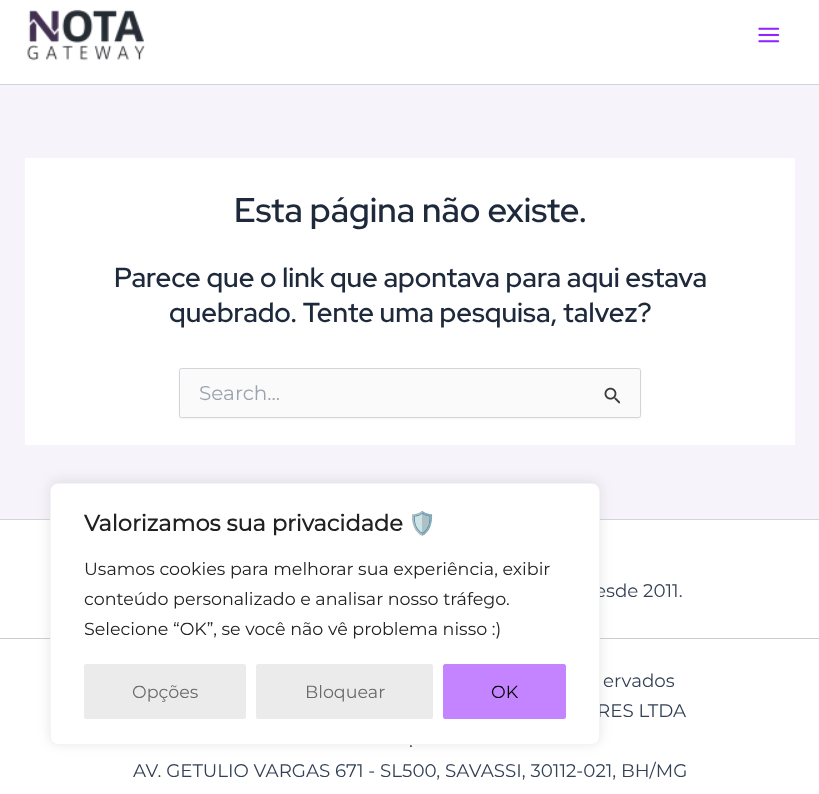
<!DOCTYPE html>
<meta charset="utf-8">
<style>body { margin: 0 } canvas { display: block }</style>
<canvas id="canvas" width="819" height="794"></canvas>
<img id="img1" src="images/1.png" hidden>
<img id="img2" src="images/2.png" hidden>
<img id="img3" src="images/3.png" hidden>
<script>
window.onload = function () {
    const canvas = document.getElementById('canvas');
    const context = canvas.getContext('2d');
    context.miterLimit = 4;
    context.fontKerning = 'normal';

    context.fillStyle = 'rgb(247, 243, 251)';
    context.fillRect(0, 0, 819, 794);
    context.fillStyle = 'rgb(255, 255, 255)';
    context.fillRect(0, 0, 819, 84);
    context.fillStyle = 'rgb(209, 213, 219)';
    context.fillRect(0, 84, 819, 1);
    context.drawImage(document.getElementById('img1'), 27, 9, 118, 52);
    context.drawImage(document.getElementById('img2'), 758, 27, 22, 16);
    context.fillStyle = 'rgb(255, 255, 255)';
    context.fillRect(25, 158, 770, 287);
    context.fillStyle = 'rgba(0, 0, 0, 0.05)';
    context.filter = 'blur(1px)';
    context.beginPath();
    context.roundRect(179, 369, 462, 50, 2.5);
    context.fill();
    context.filter = 'none';
    context.fillStyle = 'rgb(250, 250, 250)';
    context.beginPath();
    context.roundRect(179.5, 368.5, 461, 49, 2);
    context.fill();
    context.strokeStyle = 'rgb(209, 213, 219)';
    context.stroke();
    context.drawImage(document.getElementById('img3'), 604, 387, 16, 17);
    context.fillStyle = 'rgb(255, 255, 255)';
    context.fillRect(0, 520, 819, 274);
    context.fillStyle = 'rgb(209, 213, 219)';
    context.fillRect(0, 519, 819, 1);
    context.fillStyle = 'rgb(204, 204, 204)';
    context.fillRect(0, 638, 819, 1);
    context.fillStyle = 'rgba(172, 171, 171, 0.3)';
    context.filter = 'blur(6px)';
    context.beginPath();
    context.roundRect(50, 481, 550, 263, 8);
    context.fill();
    context.filter = 'none';
    context.font = '600 34.25px Red Hat Display';
    context.fillStyle = 'rgb(30, 41, 59)';
    context.fillText('Esta página não existe.', 234, 222);
    context.font = '600 27.4px Red Hat Display';
    context.fillText('Parece que o link que apontava para aqui estava', 114, 287);
    context.fillText('quebrado. Tente uma pesquisa, talvez?', 169, 322);
    context.font = '100 20px Montserrat';
    context.fillStyle = 'rgb(156, 163, 175)';
    context.fillText('Search...', 199, 400);
    context.font = '100 18.25px Montserrat';
    context.fillStyle = 'rgb(51, 65, 85)';
    context.fillText('esde 2011.', 595, 597);
    context.fillText('ervados', 603, 687);
    context.fillText('RES LTDA', 597, 717);
    context.fillText('.', 409, 747);
    context.fillText('AV. GETULIO VARGAS 671 - SL500, SAVASSI, 30112-021, BH/MG', 133, 777);
    context.fillStyle = 'rgb(255, 255, 255)';
    context.beginPath();
    context.roundRect(50.5, 483.5, 549, 261, 7.5);
    context.fill();
    context.strokeStyle = 'rgb(244, 244, 244)';
    context.stroke();
    context.font = 'bold 22.5px Montserrat';
    context.fillStyle = 'rgb(33, 33, 33)';
    context.fillText('Valorizamos sua privacidade', 84, 531);
    context.font = 'bold 22.5px Noto Color Emoji';
    context.fillText('🛡️', 408, 531);
    context.font = '100 17.5px Montserrat';
    context.fillText('Usamos cookies para melhorar sua experiência, exibir', 84, 575);
    context.fillText('conteúdo personalizado e analisar nosso tráfego.', 84, 605);
    context.fillText('Selecione “OK”, se você não vê problema nisso :)', 84, 635);
    context.fillStyle = 'rgb(235, 235, 235)';
    context.beginPath();
    context.roundRect(85.5, 665.5, 159, 52, 1);
    context.fill();
    context.strokeStyle = 'rgb(235, 235, 235)';
    context.lineWidth = 3;
    context.stroke();
    context.fillStyle = 'rgb(106, 106, 106)';
    context.fillText('Opções', 132, 698);
    context.fillStyle = 'rgb(235, 235, 235)';
    context.beginPath();
    context.roundRect(257.5, 665.5, 174, 52, 1);
    context.fill();
    context.stroke();
    context.fillStyle = 'rgb(106, 106, 106)';
    context.fillText('Bloquear', 305, 698);
    context.fillStyle = 'rgb(196, 131, 255)';
    context.beginPath();
    context.roundRect(444.5, 665.5, 120, 52, 1);
    context.fill();
    context.strokeStyle = 'rgb(196, 131, 255)';
    context.stroke();
    context.fillStyle = 'rgb(0, 0, 0)';
    context.fillText('OK', 491, 698);
};
</script>
